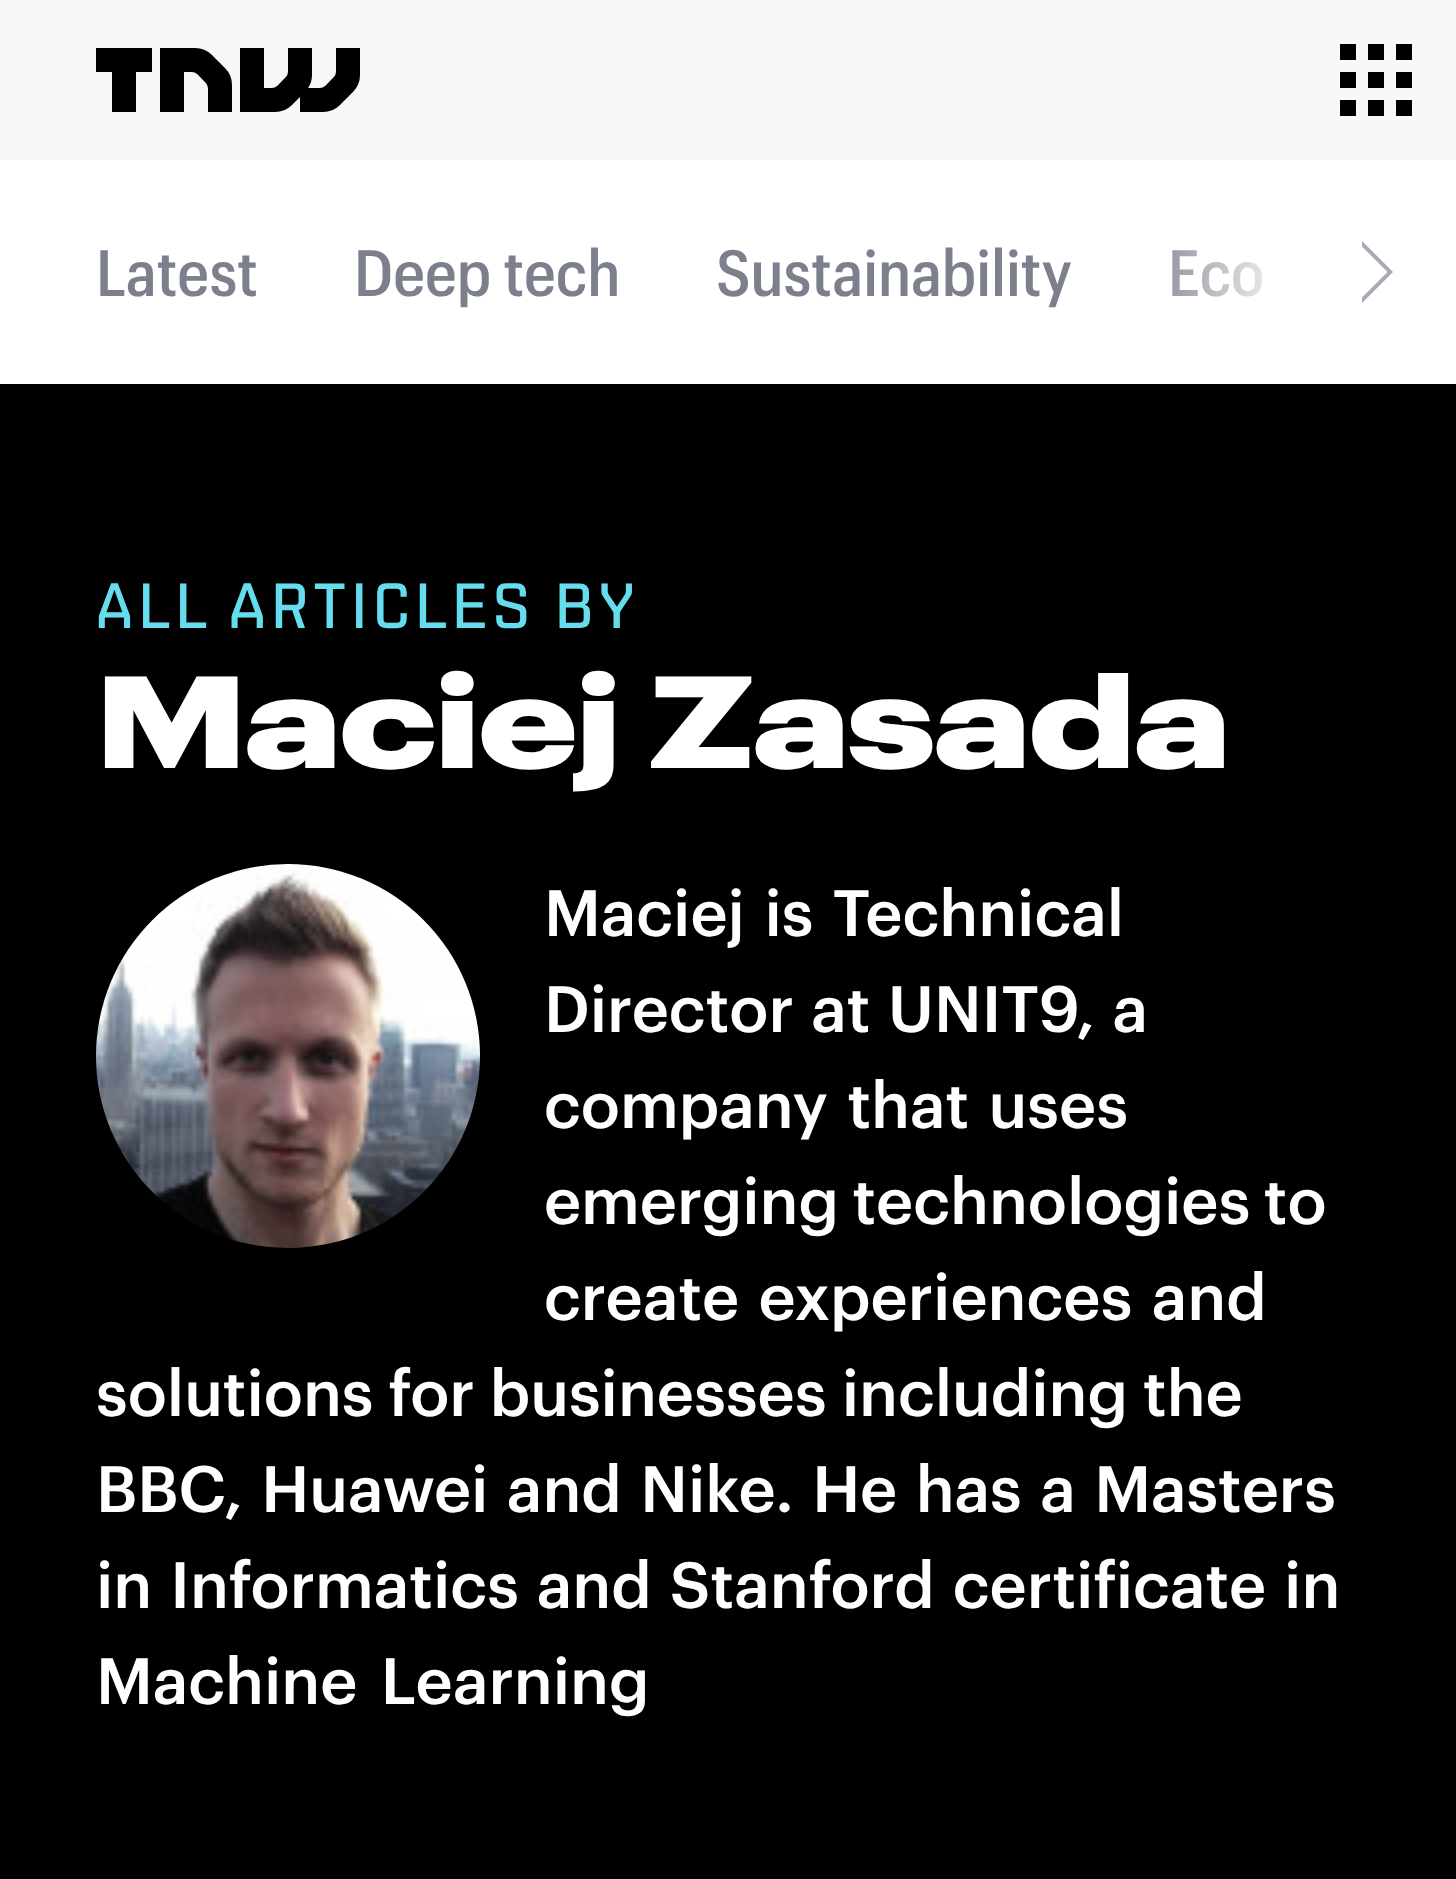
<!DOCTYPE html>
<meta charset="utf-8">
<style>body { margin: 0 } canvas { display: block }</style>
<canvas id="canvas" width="1456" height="1879"></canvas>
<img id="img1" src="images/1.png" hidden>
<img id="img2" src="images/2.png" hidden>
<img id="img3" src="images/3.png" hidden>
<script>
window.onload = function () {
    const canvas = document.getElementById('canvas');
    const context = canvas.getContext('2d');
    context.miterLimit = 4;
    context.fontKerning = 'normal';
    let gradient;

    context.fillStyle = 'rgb(0, 0, 0)';
    context.fillRect(0, 0, 1456, 1879);
    context.fillStyle = 'rgb(247, 248, 248)';
    context.fillRect(0, 0, 1456, 160);
    context.drawImage(document.getElementById('img1'), 1340, 44, 72, 72);
    context.drawImage(document.getElementById('img2'), 96, 48, 264, 64);
    context.fillStyle = 'rgb(255, 255, 255)';
    context.fillRect(0, 160, 1295, 224);
    context.drawImage(document.getElementById('img3'), 96, 864, 384, 384);
    context.font = '500 64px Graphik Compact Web';
    context.fillStyle = 'rgb(124, 128, 140)';
    context.fillText('Latest', 96, 296);
    context.fillText('Deep tech', 354, 296);
    context.fillText('Sustainability', 716, 296);
    context.fillText('Eco', 1168, 296);
    gradient = context.createLinearGradient(1136, 272, 1456, 272);
    gradient.addColorStop(0, 'rgba(255, 255, 255, 0)');
    gradient.addColorStop(0.5, 'rgb(255, 255, 255)');
    context.fillStyle = gradient;
    context.fillRect(1172, 160, 284, 224);
    context.fillStyle = 'rgb(167, 170, 178)';
    context.beginPath();
    context.moveTo(1362, 241);
    context.lineTo(1393, 272);
    context.lineTo(1387.5, 272);
    context.lineTo(1362, 246.5);
    context.closePath();
    context.moveTo(1393, 272);
    context.lineTo(1362, 303);
    context.lineTo(1362, 297.5);
    context.lineTo(1387.5, 272);
    context.closePath();
    context.fill();
    context.letterSpacing = '5.1px';
    context.font = '500 64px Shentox';
    context.fillStyle = 'rgb(102, 221, 238)';
    context.fillText('ALL ARTICLES BY', 96, 628);
    context.letterSpacing = '0px';
    context.font = '800 128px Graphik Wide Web';
    context.fillStyle = 'rgb(255, 255, 255)';
    context.fillText('Maciej Zasada', 96, 768);
    context.wordSpacing = '4px';
    context.font = '500 64px Graphik';
    context.fillText('Maciej is Technical', 544, 936);
    context.wordSpacing = '2px';
    context.fillText('Director at UNIT9, a', 544, 1032);
    context.wordSpacing = '4px';
    context.fillText('company that uses', 544, 1128);
    context.wordSpacing = '-2px';
    context.fillText('emerging technologies to', 544, 1224);
    context.wordSpacing = '4px';
    context.fillText('create experiences and', 544, 1320);
    context.wordSpacing = '-0.5px';
    context.fillText('solutions for businesses including the', 96, 1416);
    context.wordSpacing = '3px';
    context.fillText('BBC, Huawei and Nike. He has a Masters', 96, 1512);
    context.wordSpacing = '2.5px';
    context.fillText('in Informatics and Stanford certificate in', 96, 1608);
    context.wordSpacing = '8px';
    context.fillText('Machine Learning', 96, 1704);
};
</script>
